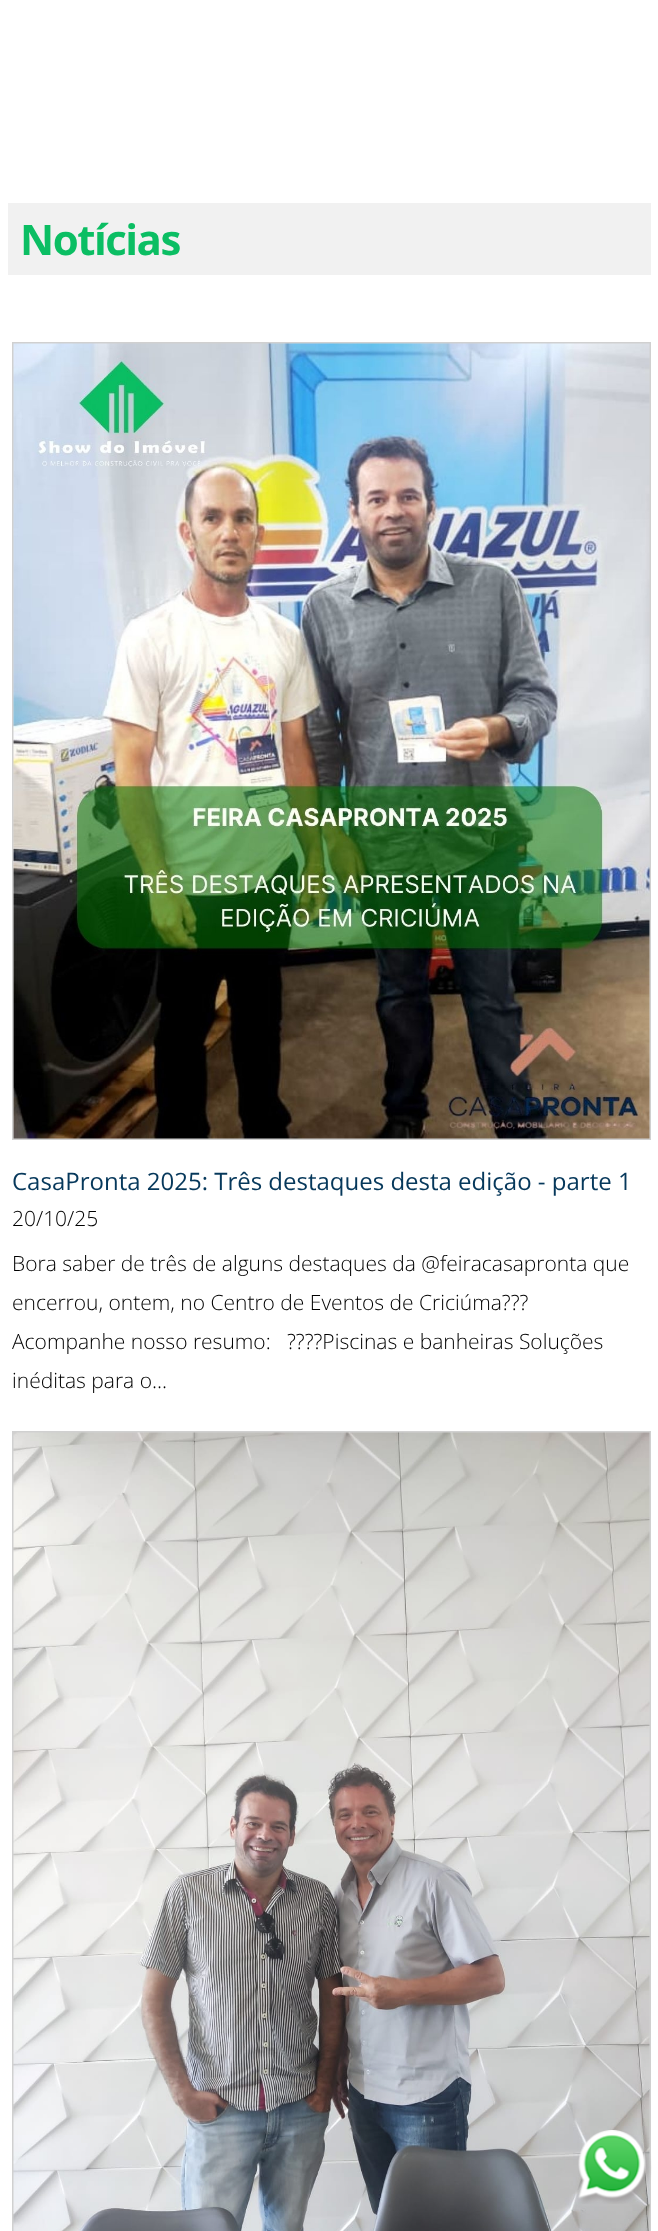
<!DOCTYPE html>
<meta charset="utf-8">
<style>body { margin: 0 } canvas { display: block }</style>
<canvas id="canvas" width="658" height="2231"></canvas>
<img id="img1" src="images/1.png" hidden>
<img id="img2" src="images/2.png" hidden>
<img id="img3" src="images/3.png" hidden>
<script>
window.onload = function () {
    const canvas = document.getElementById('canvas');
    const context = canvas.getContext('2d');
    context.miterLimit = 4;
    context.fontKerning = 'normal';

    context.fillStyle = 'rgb(255, 255, 255)';
    context.fillRect(0, 0, 658, 2231);
    context.fillStyle = 'rgb(241, 241, 241)';
    context.fillRect(8, 203, 643, 72);
    context.strokeStyle = 'rgb(208, 208, 208)';
    context.lineWidth = 2;
    context.strokeRect(13, 343, 637, 796);
    context.drawImage(document.getElementById('img1'), 13, 343, 637, 796);
    context.strokeRect(13, 1432, 637, 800);
    context.drawImage(document.getElementById('img2'), 13, 1432, 637, 799);
    context.drawImage(document.getElementById('img3'), 578, 2130, 74, 74);
    context.letterSpacing = '-1.5px';
    context.font = 'bold 42px Open Sans';
    context.fillStyle = 'rgb(11, 190, 99)';
    context.fillText('Notícias', 20, 255);
    context.letterSpacing = '0px';
    context.font = '24px Open Sans';
    context.fillStyle = 'rgb(6, 56, 91)';
    context.fillText('CasaPronta 2025: Três destaques desta edição - parte 1', 12, 1190);
    context.font = '300 21px Open Sans';
    context.fillStyle = 'rgb(0, 0, 0)';
    context.fillText('20/10/25', 12, 1226);
    context.fillText('Bora saber de três de alguns destaques da @feiracasapronta que', 12, 1271);
    context.fillText('encerrou, ontem, no Centro de Eventos de Criciúma???', 12, 1310);
    context.fillText('Acompanhe nosso resumo:', 12, 1349);
    context.fillText('????Piscinas e banheiras Soluções', 287, 1349);
    context.fillText('inéditas para o...', 12, 1388);
};
</script>
